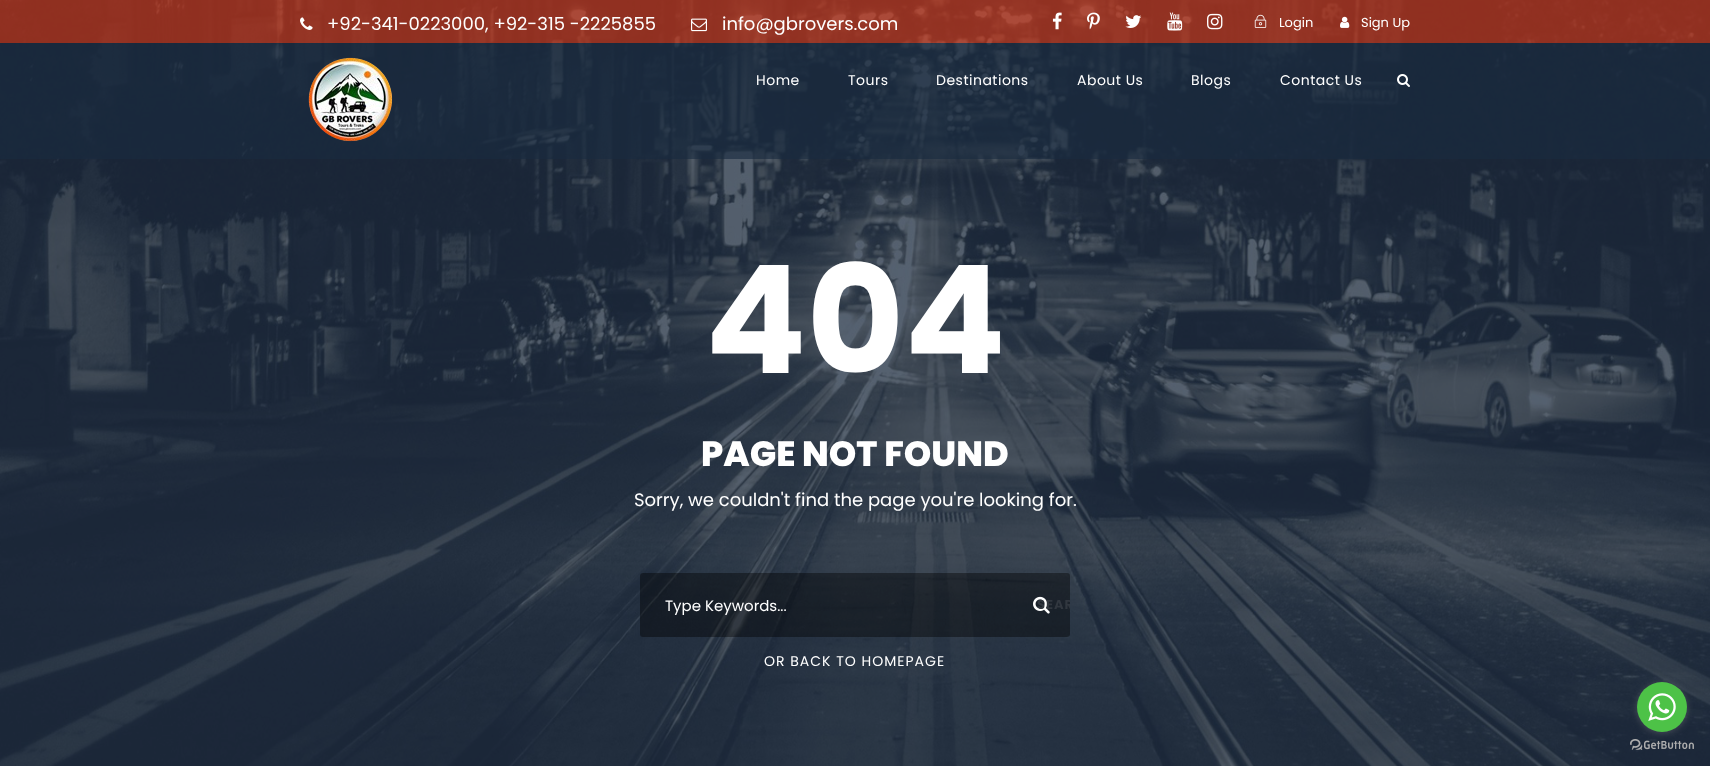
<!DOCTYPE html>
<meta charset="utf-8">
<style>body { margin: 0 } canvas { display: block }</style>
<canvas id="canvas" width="1710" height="766"></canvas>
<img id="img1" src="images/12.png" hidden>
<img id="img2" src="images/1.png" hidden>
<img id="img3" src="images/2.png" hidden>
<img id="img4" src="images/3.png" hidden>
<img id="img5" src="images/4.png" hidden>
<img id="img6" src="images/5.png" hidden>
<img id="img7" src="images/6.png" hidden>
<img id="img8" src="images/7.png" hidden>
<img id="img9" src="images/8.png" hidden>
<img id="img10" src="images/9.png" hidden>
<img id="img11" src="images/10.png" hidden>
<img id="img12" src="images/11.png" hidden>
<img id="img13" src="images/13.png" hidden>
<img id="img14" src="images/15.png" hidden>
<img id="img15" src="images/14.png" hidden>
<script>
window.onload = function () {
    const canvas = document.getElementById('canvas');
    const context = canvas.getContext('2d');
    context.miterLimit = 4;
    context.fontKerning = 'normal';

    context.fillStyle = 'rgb(26, 42, 64)';
    context.fillRect(0, 0, 1710, 766);
    context.drawImage(document.getElementById('img1'), 0, 0, 1710, 766);
    context.fillStyle = 'rgba(242, 56, 14, 0.55)';
    context.fillRect(0, 0, 1710, 43);
    context.drawImage(document.getElementById('img2'), 300, 17, 13, 13);
    context.drawImage(document.getElementById('img3'), 691, 18, 16, 14);
    context.drawImage(document.getElementById('img4'), 1052, 12, 10, 18);
    context.drawImage(document.getElementById('img5'), 1087, 12, 13, 18);
    context.drawImage(document.getElementById('img6'), 1125, 15, 17, 13);
    context.drawImage(document.getElementById('img7'), 1167, 12, 16, 19);
    context.drawImage(document.getElementById('img8'), 1207, 13, 16, 17);
    context.drawImage(document.getElementById('img9'), 1254, 14, 13, 14);
    context.drawImage(document.getElementById('img10'), 1340, 16, 10, 12);
    context.fillStyle = 'rgba(26, 42, 64, 0.63)';
    context.fillRect(0, 43, 1710, 116);
    context.drawImage(document.getElementById('img11'), 308, 57, 85, 85);
    context.drawImage(document.getElementById('img12'), 1397, 74, 13, 13);
    context.fillStyle = 'rgba(0, 0, 0, 0.4)';
    context.beginPath();
    context.roundRect(640, 573, 430, 64, 3);
    context.fill();
    context.drawImage(document.getElementById('img13'), 1033, 596, 17, 18);
    context.drawImage(document.getElementById('img14'), 1630, 739, 64, 11);
    context.fillStyle = 'rgba(136, 136, 136, 0.4)';
    context.filter = 'blur(3.5px)';
    context.beginPath();
    context.roundRect(1637, 683, 50, 50, 25);
    context.fill();
    context.filter = 'none';
    context.fillStyle = 'rgb(77, 194, 71)';
    context.beginPath();
    context.arc(1662, 707, 25, 0, 2 * Math.PI);
    context.fill();
    context.drawImage(document.getElementById('img15'), 1648, 693, 28, 28);
    context.font = '18px Poppins';
    context.fillStyle = 'rgb(255, 255, 255)';
    context.fillText('+92-341-0223000, +92-315 -2225855', 327, 30);
    context.fillText('info@gbrovers.com', 722, 30);
    context.font = '13px Poppins';
    context.fillText('Login', 1279, 27);
    context.fillText('Sign Up', 1361, 27);
    context.letterSpacing = '0.5px';
    context.font = '14px Poppins';
    context.fillText('Home', 756, 85);
    context.fillText('Tours', 848, 85);
    context.fillText('Destinations', 936, 85);
    context.fillText('About Us', 1077, 85);
    context.fillText('Blogs', 1191, 85);
    context.fillText('Contact Us', 1280, 85);
    context.letterSpacing = '0px';
    context.font = 'bold 150px Poppins';
    context.fillText('404', 705, 373);
    context.font = '800 35px Poppins';
    context.fillText('PAGE NOT FOUND', 701, 466);
    context.font = '18px Poppins';
    context.fillText('Sorry, we couldn\'t find the page you\'re looking for.', 634, 506);
    context.font = '15px Poppins';
    context.fillText('Type Keywords...', 665, 611);
    context.save();
    context.beginPath();
    context.rect(1004, 573, 66, 64);
    context.clip();
    context.letterSpacing = '1px';
    context.font = 'bold 13px Poppins';
    context.fillStyle = 'rgb(49, 55, 63)';
    context.fillText('SEAR', 1037, 609);
    context.restore();
    context.letterSpacing = '1px';
    context.font = '14px Poppins';
    context.fillText('OR BACK TO HOMEPAGE', 764, 666);
};
</script>
